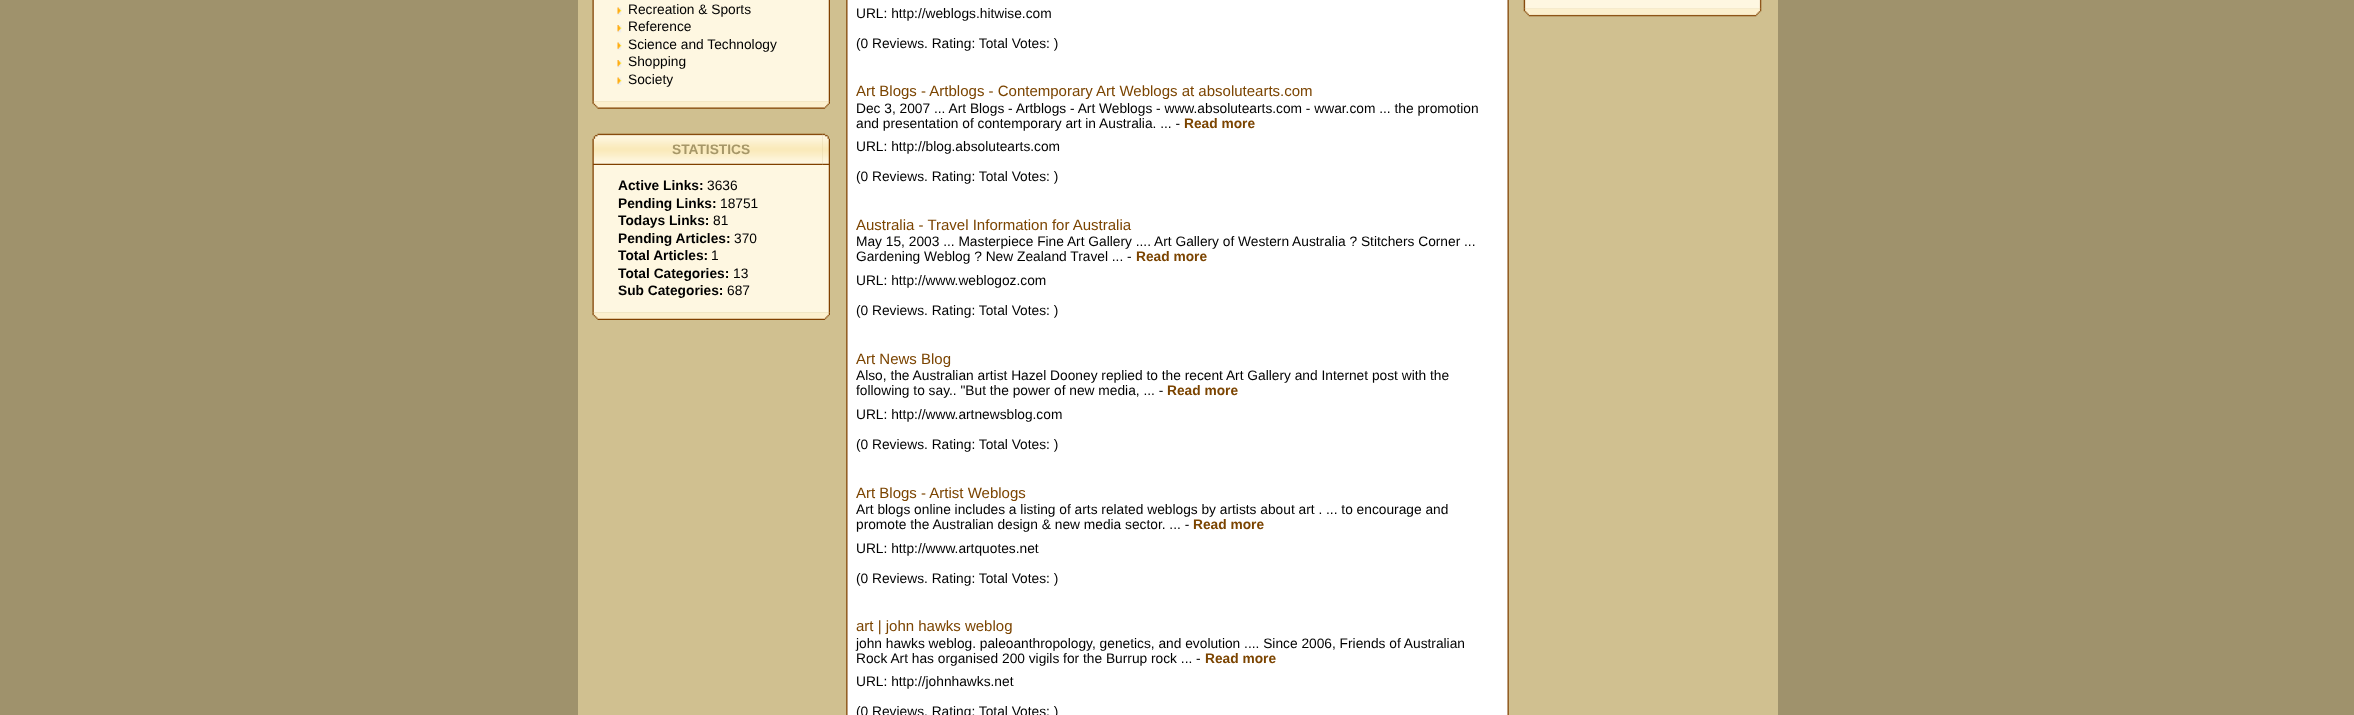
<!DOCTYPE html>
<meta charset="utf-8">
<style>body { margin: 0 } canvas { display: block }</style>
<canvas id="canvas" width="2354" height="715"></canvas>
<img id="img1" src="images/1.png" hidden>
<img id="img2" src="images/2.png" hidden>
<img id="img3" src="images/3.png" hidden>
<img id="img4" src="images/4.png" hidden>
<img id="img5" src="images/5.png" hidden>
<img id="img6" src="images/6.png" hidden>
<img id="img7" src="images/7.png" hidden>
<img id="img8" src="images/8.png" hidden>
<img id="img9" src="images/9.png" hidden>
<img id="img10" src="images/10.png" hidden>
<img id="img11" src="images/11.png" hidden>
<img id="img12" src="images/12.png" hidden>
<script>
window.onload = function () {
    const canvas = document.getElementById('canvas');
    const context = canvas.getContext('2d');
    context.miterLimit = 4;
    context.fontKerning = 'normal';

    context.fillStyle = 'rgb(159, 146, 108)';
    context.fillRect(0, 0, 2354, 715);
    context.fillStyle = 'rgb(208, 192, 144)';
    context.fillRect(578, 0, 1200, 715);
    context.drawImage(document.getElementById('img1'), 592, 0, 238, 102);
    context.drawImage(document.getElementById('img2'), 617, 7, 5, 8);
    context.drawImage(document.getElementById('img3'), 617, 25, 5, 8);
    context.drawImage(document.getElementById('img2'), 617, 42, 5, 8);
    context.drawImage(document.getElementById('img3'), 617, 60, 5, 8);
    context.drawImage(document.getElementById('img2'), 617, 77, 5, 8);
    context.drawImage(document.getElementById('img4'), 592, 101, 238, 8);
    context.drawImage(document.getElementById('img5'), 592, 133, 8, 32);
    context.drawImage(document.getElementById('img6'), 600, 133, 223, 32);
    context.drawImage(document.getElementById('img7'), 822, 133, 8, 32);
    context.drawImage(document.getElementById('img8'), 592, 165, 238, 148);
    context.drawImage(document.getElementById('img9'), 592, 312, 238, 8);
    context.drawImage(document.getElementById('img10'), 846, 0, 663, 715);
    context.drawImage(document.getElementById('img11'), 1523, 0, 239, 9);
    context.drawImage(document.getElementById('img12'), 1523, 8, 239, 9);
    context.font = '13.75px Liberation Sans';
    context.fillStyle = 'rgb(0, 0, 0)';
    context.fillText('Recreation & Sports', 628, 14);
    context.fillText('Reference', 628, 31);
    context.fillText('Science and Technology', 628, 49);
    context.fillText('Shopping', 628, 66);
    context.fillText('Society', 628, 84);
    context.font = 'bold 13.75px Liberation Sans';
    context.fillStyle = 'rgb(166, 151, 104)';
    context.fillText('STATISTICS', 672, 154);
    context.fillStyle = 'rgb(0, 0, 0)';
    context.fillText('Active Links:', 618, 190);
    context.font = '13.75px Liberation Sans';
    context.fillText('3636', 707, 190);
    context.font = 'bold 13.75px Liberation Sans';
    context.fillText('Pending Links:', 618, 208);
    context.font = '13.75px Liberation Sans';
    context.fillText('18751', 720, 208);
    context.font = 'bold 13.75px Liberation Sans';
    context.fillText('Todays Links:', 618, 225);
    context.font = '13.75px Liberation Sans';
    context.fillText('81', 713, 225);
    context.font = 'bold 13.75px Liberation Sans';
    context.fillText('Pending Articles:', 618, 243);
    context.font = '13.75px Liberation Sans';
    context.fillText('370', 734, 243);
    context.font = 'bold 13.75px Liberation Sans';
    context.fillText('Total Articles:', 618, 260);
    context.font = '13.75px Liberation Sans';
    context.fillText('1', 711, 260);
    context.font = 'bold 13.75px Liberation Sans';
    context.fillText('Total Categories:', 618, 278);
    context.font = '13.75px Liberation Sans';
    context.fillText('13', 733, 278);
    context.font = 'bold 13.75px Liberation Sans';
    context.fillText('Sub Categories:', 618, 295);
    context.font = '13.75px Liberation Sans';
    context.fillText('687', 727, 295);
    context.fillText('URL: http://weblogs.hitwise.com', 856, 18);
    context.fillText('(0 Reviews. Rating: Total Votes: )', 856, 48);
    context.font = '15px Liberation Sans';
    context.fillStyle = 'rgb(123, 68, 0)';
    context.fillText('Art Blogs - Artblogs - Contemporary Art Weblogs at absolutearts.com', 856, 96);
    context.font = '13.75px Liberation Sans';
    context.fillStyle = 'rgb(0, 0, 0)';
    context.fillText('Dec 3, 2007 ... Art Blogs - Artblogs - Art Weblogs - www.absolutearts.com - wwar.com ... the promotion', 856, 113);
    context.fillText('and presentation of contemporary art in Australia. ... -', 856, 128);
    context.font = 'bold 13.75px Liberation Sans';
    context.fillStyle = 'rgb(123, 68, 0)';
    context.fillText('Read more', 1184, 128);
    context.font = '13.75px Liberation Sans';
    context.fillStyle = 'rgb(0, 0, 0)';
    context.fillText('URL: http://blog.absolutearts.com', 856, 151);
    context.fillText('(0 Reviews. Rating: Total Votes: )', 856, 181);
    context.font = '15px Liberation Sans';
    context.fillStyle = 'rgb(123, 68, 0)';
    context.fillText('Australia - Travel Information for Australia', 856, 230);
    context.font = '13.75px Liberation Sans';
    context.fillStyle = 'rgb(0, 0, 0)';
    context.fillText('May 15, 2003 ... Masterpiece Fine Art Gallery .... Art Gallery of Western Australia ? Stitchers Corner ...', 856, 246);
    context.fillText('Gardening Weblog ? New Zealand Travel ... -', 856, 261);
    context.font = 'bold 13.75px Liberation Sans';
    context.fillStyle = 'rgb(123, 68, 0)';
    context.fillText('Read more', 1136, 261);
    context.font = '13.75px Liberation Sans';
    context.fillStyle = 'rgb(0, 0, 0)';
    context.fillText('URL: http://www.weblogoz.com', 856, 285);
    context.fillText('(0 Reviews. Rating: Total Votes: )', 856, 315);
    context.font = '15px Liberation Sans';
    context.fillStyle = 'rgb(123, 68, 0)';
    context.fillText('Art News Blog', 856, 364);
    context.font = '13.75px Liberation Sans';
    context.fillStyle = 'rgb(0, 0, 0)';
    context.fillText('Also, the Australian artist Hazel Dooney replied to the recent Art Gallery and Internet post with the', 856, 380);
    context.fillText('following to say.. "But the power of new media, ... -', 856, 395);
    context.font = 'bold 13.75px Liberation Sans';
    context.fillStyle = 'rgb(123, 68, 0)';
    context.fillText('Read more', 1167, 395);
    context.font = '13.75px Liberation Sans';
    context.fillStyle = 'rgb(0, 0, 0)';
    context.fillText('URL: http://www.artnewsblog.com', 856, 419);
    context.fillText('(0 Reviews. Rating: Total Votes: )', 856, 449);
    context.font = '15px Liberation Sans';
    context.fillStyle = 'rgb(123, 68, 0)';
    context.fillText('Art Blogs - Artist Weblogs', 856, 498);
    context.font = '13.75px Liberation Sans';
    context.fillStyle = 'rgb(0, 0, 0)';
    context.fillText('Art blogs online includes a listing of arts related weblogs by artists about art . ... to encourage and', 856, 514);
    context.fillText('promote the Australian design & new media sector. ... -', 856, 529);
    context.font = 'bold 13.75px Liberation Sans';
    context.fillStyle = 'rgb(123, 68, 0)';
    context.fillText('Read more', 1193, 529);
    context.font = '13.75px Liberation Sans';
    context.fillStyle = 'rgb(0, 0, 0)';
    context.fillText('URL: http://www.artquotes.net', 856, 553);
    context.fillText('(0 Reviews. Rating: Total Votes: )', 856, 583);
    context.font = '15px Liberation Sans';
    context.fillStyle = 'rgb(123, 68, 0)';
    context.fillText('art | john hawks weblog', 856, 631);
    context.font = '13.75px Liberation Sans';
    context.fillStyle = 'rgb(0, 0, 0)';
    context.fillText('john hawks weblog. paleoanthropology, genetics, and evolution .... Since 2006, Friends of Australian', 856, 648);
    context.fillText('Rock Art has organised 200 vigils for the Burrup rock ... -', 856, 663);
    context.font = 'bold 13.75px Liberation Sans';
    context.fillStyle = 'rgb(123, 68, 0)';
    context.fillText('Read more', 1205, 663);
    context.font = '13.75px Liberation Sans';
    context.fillStyle = 'rgb(0, 0, 0)';
    context.fillText('URL: http://johnhawks.net', 856, 686);
    context.fillText('(0 Reviews. Rating: Total Votes: )', 856, 716);
};
</script>
